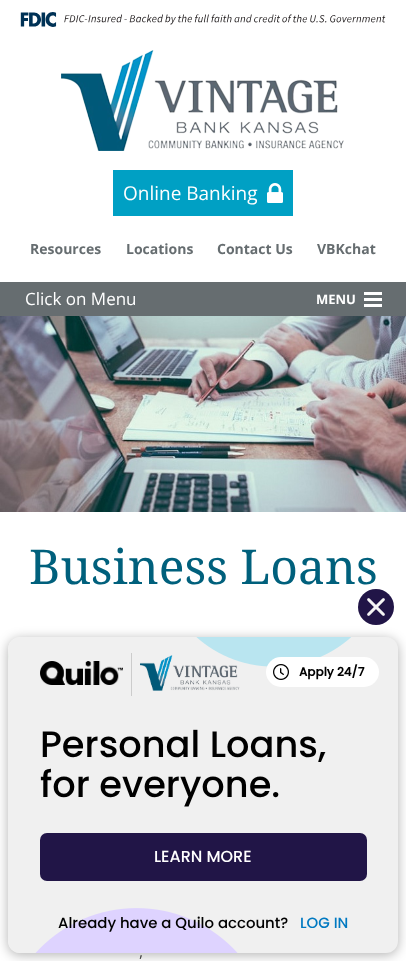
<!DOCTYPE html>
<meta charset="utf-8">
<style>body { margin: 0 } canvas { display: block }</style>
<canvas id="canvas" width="406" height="961"></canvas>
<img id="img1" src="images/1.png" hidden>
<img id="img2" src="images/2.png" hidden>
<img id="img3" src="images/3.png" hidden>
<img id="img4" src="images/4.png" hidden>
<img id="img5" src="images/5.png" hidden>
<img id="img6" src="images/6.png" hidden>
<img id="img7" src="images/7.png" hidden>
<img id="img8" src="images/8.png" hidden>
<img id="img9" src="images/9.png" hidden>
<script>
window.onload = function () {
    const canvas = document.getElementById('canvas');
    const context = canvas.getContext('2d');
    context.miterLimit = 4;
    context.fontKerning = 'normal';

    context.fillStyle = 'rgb(255, 255, 255)';
    context.fillRect(0, 0, 406, 961);
    context.drawImage(document.getElementById('img1'), 20, 12, 366, 15);
    context.drawImage(document.getElementById('img2'), 61, 50, 283, 101);
    context.fillStyle = 'rgb(0, 160, 196)';
    context.fillRect(113, 170, 180, 46);
    context.drawImage(document.getElementById('img3'), 267, 183, 16, 20);
    context.fillStyle = 'rgb(102, 109, 112)';
    context.fillRect(0, 282, 406, 34);
    context.fillStyle = 'rgb(255, 255, 255)';
    context.fillRect(364, 304, 18, 3);
    context.fillRect(364, 298, 18, 3);
    context.fillRect(364, 292, 18, 3);
    context.drawImage(document.getElementById('img4'), 0, 316, 406, 196);
    context.fillStyle = 'rgba(0, 0, 0, 0.3)';
    context.filter = 'blur(6px)';
    context.beginPath();
    context.roundRect(8, 639, 390, 316, 12);
    context.fill();
    context.filter = 'none';
    context.fillStyle = 'rgb(33, 21, 71)';
    context.beginPath();
    context.arc(376, 607, 18, 0, 2 * Math.PI);
    context.fill();
    context.drawImage(document.getElementById('img5'), 367, 598, 18, 18);
    context.fillStyle = 'rgb(240, 240, 240)';
    context.beginPath();
    context.roundRect(8, 637, 390, 316, 12);
    context.fill();
    context.drawImage(document.getElementById('img6'), 8, 637, 343, 316);
    context.fillStyle = 'rgb(255, 255, 255)';
    context.beginPath();
    context.roundRect(266, 657, 113, 30, 15);
    context.fill();
    context.drawImage(document.getElementById('img7'), 273, 664, 16, 16);
    context.drawImage(document.getElementById('img8'), 40, 661, 83, 24);
    context.fillStyle = 'rgb(204, 204, 204)';
    context.fillRect(131, 653, 1, 43);
    context.drawImage(document.getElementById('img9'), 140, 655, 100, 36);
    context.fillStyle = 'rgb(33, 21, 71)';
    context.beginPath();
    context.roundRect(40, 833, 327, 48, 7);
    context.fill();
    context.font = '19px Open Sans';
    context.fillStyle = 'rgb(255, 255, 255)';
    context.fillText('Online Banking', 123, 200);
    context.font = 'bold 14px Open Sans';
    context.fillStyle = 'rgb(102, 109, 112)';
    context.fillText('Resources', 30, 254);
    context.fillText('Locations', 126, 254);
    context.fillText('Contact Us', 217, 254);
    context.fillText('VBKchat', 317, 254);
    context.font = '17px Open Sans';
    context.fillStyle = 'rgb(255, 255, 255)';
    context.fillText('Click on Menu', 25, 305);
    context.font = 'bold 13px Open Sans';
    context.fillText('MENU', 316, 304);
    context.font = '48px Droid Serif';
    context.fillStyle = 'rgb(0, 96, 124)';
    context.fillText('Business Loans', 29, 584);
    context.font = '16px Open Sans';
    context.fillStyle = 'rgb(68, 68, 68)';
    context.fillText(',', 139, 957);
    context.font = 'bold 12px Poppins';
    context.fillStyle = 'rgb(0, 0, 0)';
    context.fillText('Apply 24/7', 299, 676);
    context.font = '500 36.75px Poppins';
    context.fillText('Personal Loans,', 40, 757);
    context.fillText('for everyone.', 40, 797);
    context.font = '500 16px Poppins';
    context.fillStyle = 'rgb(255, 255, 255)';
    context.fillText('LEARN MORE', 154, 862);
    context.font = '500 14.9px Poppins';
    context.fillStyle = 'rgb(0, 0, 0)';
    context.fillText('Already have a Quilo account?', 58, 928);
    context.fillStyle = 'rgb(0, 121, 193)';
    context.fillText('LOG IN', 300, 928);
};
</script>
